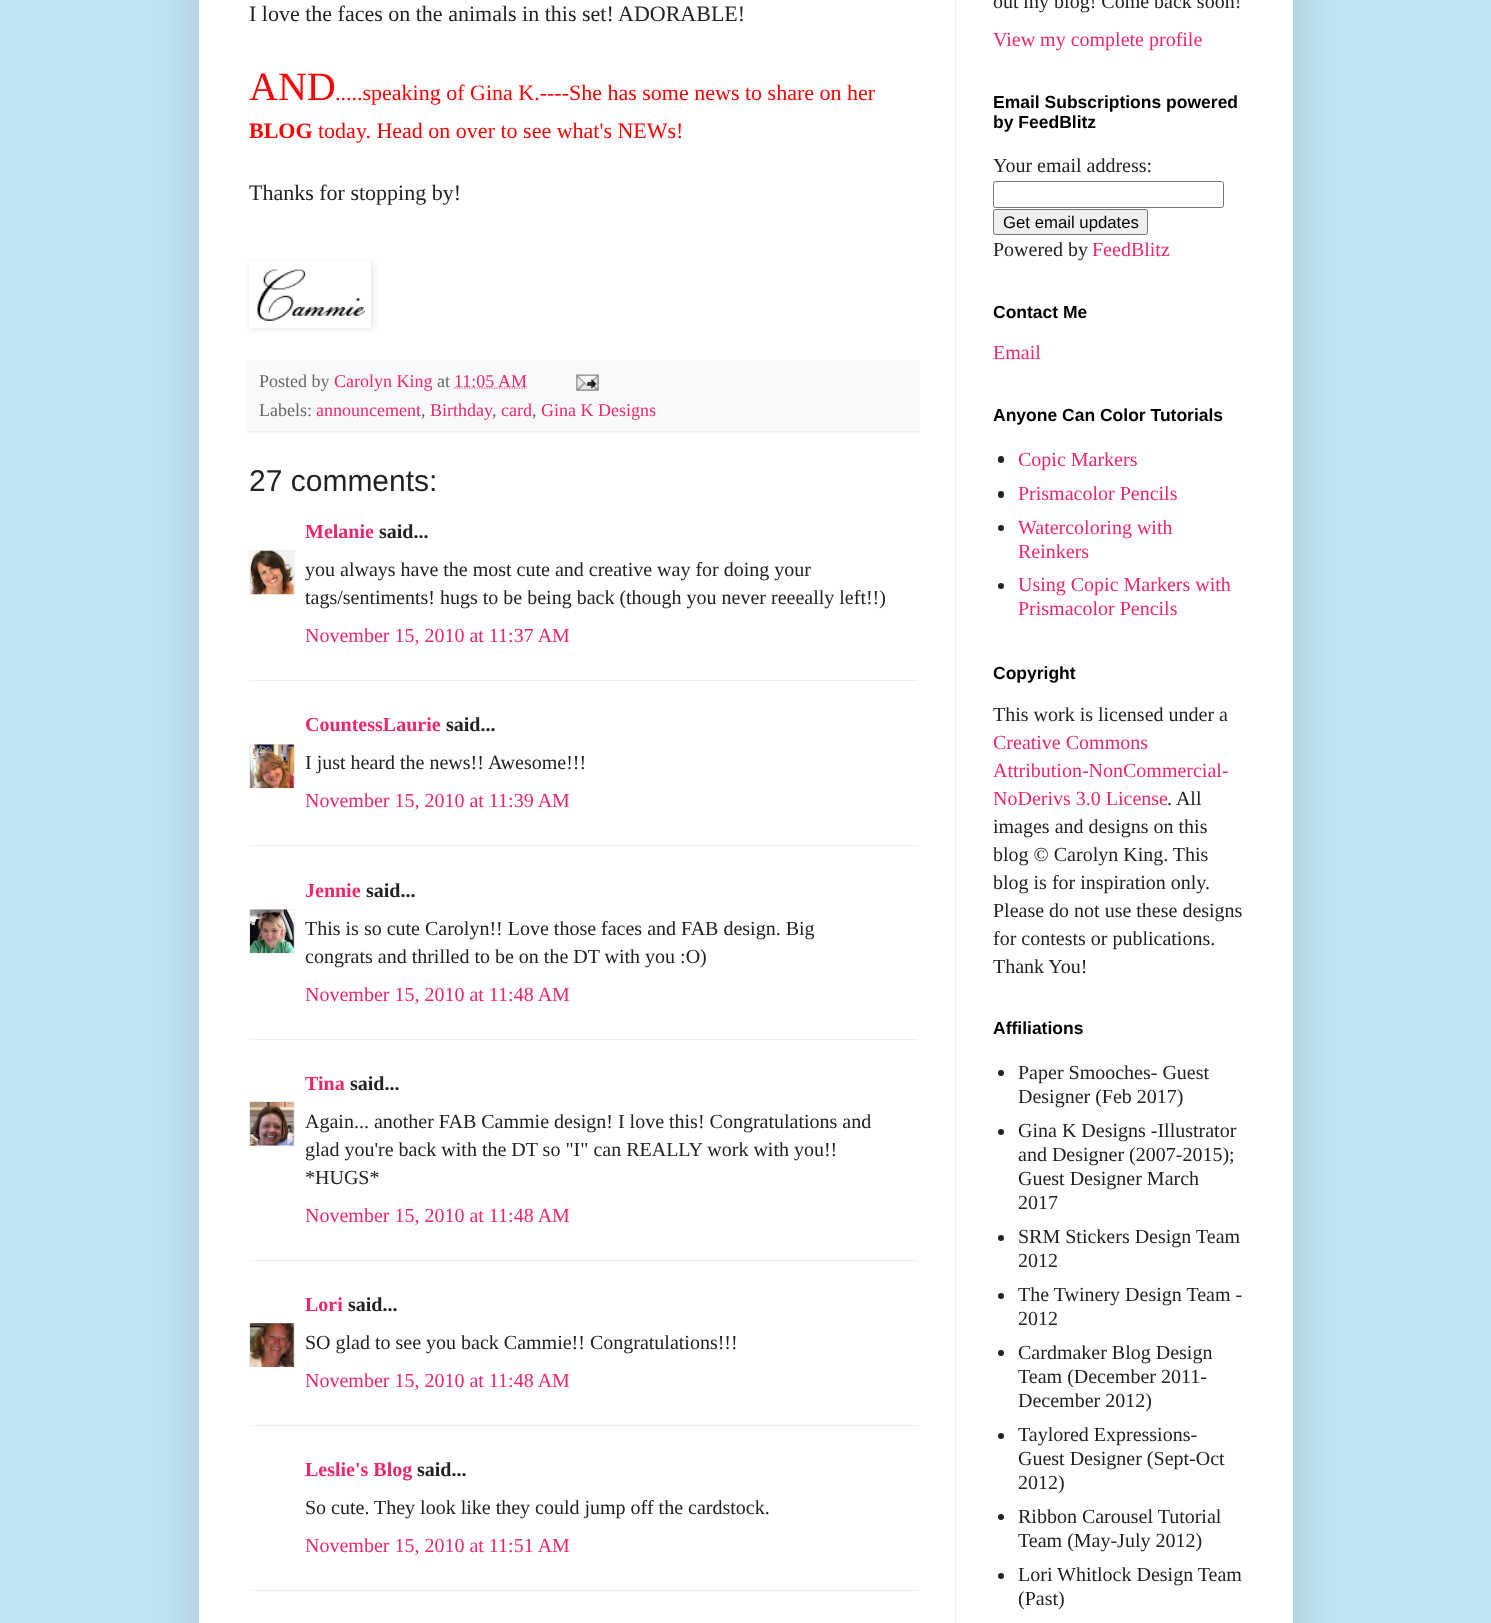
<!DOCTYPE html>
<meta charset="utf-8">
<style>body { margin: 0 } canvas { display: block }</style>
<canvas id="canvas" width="1491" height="1623"></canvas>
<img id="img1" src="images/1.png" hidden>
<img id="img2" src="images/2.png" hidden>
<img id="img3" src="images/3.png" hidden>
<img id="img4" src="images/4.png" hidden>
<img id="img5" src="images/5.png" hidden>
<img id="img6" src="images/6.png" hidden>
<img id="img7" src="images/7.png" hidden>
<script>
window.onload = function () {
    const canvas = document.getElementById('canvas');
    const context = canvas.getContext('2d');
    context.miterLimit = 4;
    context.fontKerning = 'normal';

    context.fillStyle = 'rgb(193, 229, 242)';
    context.fillRect(0, 0, 1491, 1623);
    context.fillStyle = 'rgba(0, 0, 0, 0.15)';
    context.filter = 'blur(25px)';
    context.beginPath();
    context.rect(199, -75, 1094, 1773);
    context.fill();
    context.filter = 'none';
    context.fillStyle = 'rgb(255, 255, 255)';
    context.fillRect(199, 0, 1094, 1623);
    context.save();
    context.beginPath();
    context.moveTo(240, 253);
    context.lineTo(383, 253);
    context.lineTo(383, 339);
    context.lineTo(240, 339);
    context.closePath();
    context.moveTo(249, 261);
    context.lineTo(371, 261);
    context.lineTo(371, 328);
    context.lineTo(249, 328);
    context.closePath();
    context.clip('evenodd');
    context.fillStyle = 'rgba(0, 0, 0, 0.1)';
    context.filter = 'blur(3px)';
    context.beginPath();
    context.rect(250, 263, 123, 66);
    context.fill();
    context.filter = 'none';
    context.restore();
    context.drawImage(document.getElementById('img1'), 257, 269, 108, 52);
    context.fillStyle = 'rgb(249, 249, 249)';
    context.fillRect(246, 360, 674, 73);
    context.fillStyle = 'rgb(238, 238, 238)';
    context.fillRect(246, 431, 674, 1);
    context.beginPath();
    context.moveTo(454, 388);
    context.lineTo(527, 388);
    context.strokeStyle = 'rgb(239, 38, 105)';
    context.lineWidth = 1.2;
    context.setLineDash([1.25, 1.25]);
    context.stroke();
    context.drawImage(document.getElementById('img2'), 576, 374, 23, 17);
    context.save();
    context.beginPath();
    context.rect(249, 550, 46, 45);
    context.clip();
    context.strokeStyle = 'rgb(238, 238, 238)';
    context.lineWidth = 1;
    context.setLineDash([]);
    context.strokeRect(249.5, 550.5, 45, 45);
    context.restore();
    context.drawImage(document.getElementById('img3'), 250, 550, 44, 45);
    context.fillRect(249, 680, 669, 1);
    context.save();
    context.beginPath();
    context.rect(249, 744, 46, 45);
    context.clip();
    context.strokeStyle = 'rgb(238, 238, 238)';
    context.lineWidth = 1;
    context.setLineDash([]);
    context.strokeRect(249.5, 744.5, 45, 45);
    context.restore();
    context.drawImage(document.getElementById('img4'), 250, 744, 44, 45);
    context.fillRect(249, 845, 669, 1);
    context.save();
    context.beginPath();
    context.rect(249, 909, 46, 45);
    context.clip();
    context.strokeStyle = 'rgb(238, 238, 238)';
    context.lineWidth = 1;
    context.setLineDash([]);
    context.strokeRect(249.5, 909.5, 45, 45);
    context.restore();
    context.drawImage(document.getElementById('img5'), 250, 909, 44, 45);
    context.fillRect(249, 1039, 669, 1);
    context.save();
    context.beginPath();
    context.rect(249, 1101, 46, 45);
    context.clip();
    context.strokeStyle = 'rgb(238, 238, 238)';
    context.lineWidth = 1;
    context.setLineDash([]);
    context.strokeRect(249.5, 1101.5, 45, 46);
    context.restore();
    context.drawImage(document.getElementById('img6'), 250, 1102, 44, 44);
    context.fillRect(249, 1260, 669, 1);
    context.save();
    context.beginPath();
    context.rect(249, 1323, 46, 45);
    context.clip();
    context.strokeStyle = 'rgb(238, 238, 238)';
    context.lineWidth = 1;
    context.setLineDash([]);
    context.strokeRect(249.5, 1323.5, 45, 45);
    context.restore();
    context.drawImage(document.getElementById('img7'), 250, 1323, 44, 44);
    context.fillRect(249, 1425, 669, 1);
    context.fillRect(249, 1590, 669, 1);
    context.beginPath();
    context.roundRect(993.5, 181.5, 230, 26, 2);
    context.strokeStyle = 'rgb(118, 118, 118)';
    context.lineWidth = 1;
    context.setLineDash([]);
    context.stroke();
    context.fillStyle = 'rgb(239, 239, 239)';
    context.beginPath();
    context.roundRect(993.5, 209.5, 154, 25, 2);
    context.fill();
    context.stroke();
    context.fillStyle = 'rgb(34, 34, 34)';
    context.beginPath();
    context.roundRect(998, 456, 6, 7, 3);
    context.fill();
    context.beginPath();
    context.roundRect(998, 491, 6, 7, 3);
    context.fill();
    context.beginPath();
    context.arc(1001, 528, 3, 0, 2 * Math.PI);
    context.fill();
    context.beginPath();
    context.arc(1001, 586, 3, 0, 2 * Math.PI);
    context.fill();
    context.beginPath();
    context.arc(1001, 1073, 3, 0, 2 * Math.PI);
    context.fill();
    context.beginPath();
    context.arc(1001, 1132, 3, 0, 2 * Math.PI);
    context.fill();
    context.beginPath();
    context.arc(1001, 1238, 3, 0, 2 * Math.PI);
    context.fill();
    context.beginPath();
    context.arc(1001, 1296, 3, 0, 2 * Math.PI);
    context.fill();
    context.beginPath();
    context.arc(1001, 1353, 3, 0, 2 * Math.PI);
    context.fill();
    context.beginPath();
    context.arc(1001, 1436, 3, 0, 2 * Math.PI);
    context.fill();
    context.beginPath();
    context.arc(1001, 1517, 3, 0, 2 * Math.PI);
    context.fill();
    context.beginPath();
    context.arc(1001, 1576, 3, 0, 2 * Math.PI);
    context.fill();
    context.fillStyle = 'rgb(238, 238, 238)';
    context.fillRect(955, 0, 1, 1623);
    context.font = '22px Liberation Serif';
    context.fillStyle = 'rgb(34, 34, 34)';
    context.fillText('I love the faces on the animals in this set! ADORABLE!', 249, 21);
    context.font = '40px Liberation Serif';
    context.fillStyle = 'rgb(255, 0, 0)';
    context.fillText('AND', 249, 100);
    context.font = '22px Liberation Serif';
    context.fillText('.....speaking of Gina K.----She has some news to share on her', 335, 100);
    context.font = 'bold 22px Liberation Serif';
    context.fillText('BLOG', 249, 138);
    context.font = '22px Liberation Serif';
    context.fillText('today. Head on over to see what\'s NEWs!', 318, 138);
    context.fillStyle = 'rgb(34, 34, 34)';
    context.fillText('Thanks for stopping by!', 249, 200);
    context.font = '18px Liberation Serif';
    context.fillStyle = 'rgb(102, 102, 102)';
    context.fillText('Posted by', 259, 387);
    context.fillStyle = 'rgb(239, 38, 105)';
    context.fillText('Carolyn King', 334, 387);
    context.fillStyle = 'rgb(102, 102, 102)';
    context.fillText('at', 437, 387);
    context.fillStyle = 'rgb(239, 38, 105)';
    context.fillText('11:05 AM', 454, 387);
    context.fillStyle = 'rgb(102, 102, 102)';
    context.fillText('Labels:', 259, 416);
    context.fillStyle = 'rgb(239, 38, 105)';
    context.fillText('announcement', 316, 416);
    context.fillStyle = 'rgb(102, 102, 102)';
    context.fillText(',', 421, 416);
    context.fillStyle = 'rgb(239, 38, 105)';
    context.fillText('Birthday', 430, 416);
    context.fillText('card', 501, 416);
    context.fillText('Gina K Designs', 541, 416);
    context.fillStyle = 'rgb(102, 102, 102)';
    context.fillText(',', 492, 416);
    context.fillText(',', 532, 416);
    context.font = '30px Liberation Sans';
    context.fillStyle = 'rgb(34, 34, 34)';
    context.fillText('27 comments:', 249, 491);
    context.font = 'bold 20px Liberation Serif';
    context.fillStyle = 'rgb(239, 38, 105)';
    context.fillText('Melanie', 305, 538);
    context.fillStyle = 'rgb(34, 34, 34)';
    context.fillText('said...', 379, 538);
    context.font = '20px Liberation Serif';
    context.fillText('you always have the most cute and creative way for doing your', 305, 576);
    context.fillText('tags/sentiments! hugs to be being back (though you never reeeally left!!)', 305, 604);
    context.fillStyle = 'rgb(239, 38, 105)';
    context.fillText('November 15, 2010 at 11:37 AM', 305, 642);
    context.font = 'bold 20px Liberation Serif';
    context.fillText('CountessLaurie', 305, 731);
    context.fillStyle = 'rgb(34, 34, 34)';
    context.fillText('said...', 446, 731);
    context.font = '20px Liberation Serif';
    context.fillText('I just heard the news!!', 305, 769);
    context.fillText('Awesome!!!', 488, 769);
    context.fillStyle = 'rgb(239, 38, 105)';
    context.fillText('November 15, 2010 at 11:39 AM', 305, 807);
    context.font = 'bold 20px Liberation Serif';
    context.fillText('Jennie', 305, 897);
    context.fillStyle = 'rgb(34, 34, 34)';
    context.fillText('said...', 366, 897);
    context.font = '20px Liberation Serif';
    context.fillText('This is so cute Carolyn!! Love those faces and FAB design. Big', 305, 935);
    context.fillText('congrats and thrilled to be on the DT with you :O)', 305, 963);
    context.fillStyle = 'rgb(239, 38, 105)';
    context.fillText('November 15, 2010 at 11:48 AM', 305, 1001);
    context.font = 'bold 20px Liberation Serif';
    context.fillText('Tina', 305, 1090);
    context.fillStyle = 'rgb(34, 34, 34)';
    context.fillText('said...', 350, 1090);
    context.font = '20px Liberation Serif';
    context.fillText('Again... another FAB Cammie design! I love this! Congratulations and', 305, 1128);
    context.fillText('glad you\'re back with the DT so "I" can REALLY work with you!!', 305, 1156);
    context.fillText('*HUGS*', 305, 1184);
    context.fillStyle = 'rgb(239, 38, 105)';
    context.fillText('November 15, 2010 at 11:48 AM', 305, 1222);
    context.font = 'bold 20px Liberation Serif';
    context.fillText('Lori', 305, 1311);
    context.fillStyle = 'rgb(34, 34, 34)';
    context.fillText('said...', 348, 1311);
    context.font = '20px Liberation Serif';
    context.fillText('SO glad to see you back Cammie!! Congratulations!!!', 305, 1349);
    context.fillStyle = 'rgb(239, 38, 105)';
    context.fillText('November 15, 2010 at 11:48 AM', 305, 1387);
    context.font = 'bold 20px Liberation Serif';
    context.fillText('Leslie\'s Blog', 305, 1476);
    context.fillStyle = 'rgb(34, 34, 34)';
    context.fillText('said...', 417, 1476);
    context.font = '20px Liberation Serif';
    context.fillText('So cute.', 305, 1514);
    context.fillText('They look like they could jump off the cardstock.', 374, 1514);
    context.fillStyle = 'rgb(239, 38, 105)';
    context.fillText('November 15, 2010 at 11:51 AM', 305, 1552);
    context.fillStyle = 'rgb(34, 34, 34)';
    context.fillText('out my blog! Come back soon!', 993, 8);
    context.fillStyle = 'rgb(239, 38, 105)';
    context.fillText('View my complete profile', 993, 46);
    context.font = 'bold 17.5px Liberation Sans';
    context.fillStyle = 'rgb(0, 0, 0)';
    context.fillText('Email Subscriptions powered', 993, 108);
    context.fillText('by FeedBlitz', 993, 128);
    context.font = '20px Liberation Serif';
    context.fillStyle = 'rgb(34, 34, 34)';
    context.fillText('Your email address:', 993, 172);
    context.font = '16.75px Liberation Sans';
    context.fillStyle = 'rgb(0, 0, 0)';
    context.fillText('Get email updates', 1003, 228);
    context.font = '20px Liberation Serif';
    context.fillStyle = 'rgb(34, 34, 34)';
    context.fillText('Powered by', 993, 256);
    context.fillStyle = 'rgb(239, 38, 105)';
    context.fillText('FeedBlitz', 1092, 256);
    context.font = 'bold 17.5px Liberation Sans';
    context.fillStyle = 'rgb(0, 0, 0)';
    context.fillText('Contact Me', 993, 318);
    context.font = '20px Liberation Serif';
    context.fillStyle = 'rgb(239, 38, 105)';
    context.fillText('Email', 993, 359);
    context.font = 'bold 17.5px Liberation Sans';
    context.fillStyle = 'rgb(0, 0, 0)';
    context.fillText('Anyone Can Color Tutorials', 993, 421);
    context.font = '20px Liberation Serif';
    context.fillStyle = 'rgb(239, 38, 105)';
    context.fillText('Copic Markers', 1018, 466);
    context.fillText('Prismacolor Pencils', 1018, 500);
    context.fillText('Watercoloring with', 1018, 534);
    context.fillText('Reinkers', 1018, 558);
    context.fillText('Using Copic Markers with', 1018, 591);
    context.fillText('Prismacolor Pencils', 1018, 615);
    context.font = 'bold 17.5px Liberation Sans';
    context.fillStyle = 'rgb(0, 0, 0)';
    context.fillText('Copyright', 993, 679);
    context.font = '20px Liberation Serif';
    context.fillStyle = 'rgb(34, 34, 34)';
    context.fillText('This work is licensed under a', 993, 721);
    context.fillStyle = 'rgb(239, 38, 105)';
    context.fillText('Creative Commons', 993, 749);
    context.fillText('Attribution-NonCommercial-', 993, 777);
    context.fillText('NoDerivs 3.0 License', 993, 805);
    context.fillStyle = 'rgb(34, 34, 34)';
    context.fillText('. All', 1167, 805);
    context.fillText('images and designs on this', 993, 833);
    context.fillText('blog © Carolyn King. This', 993, 861);
    context.fillText('blog is for inspiration only.', 993, 889);
    context.fillText('Please do not use these designs', 993, 917);
    context.fillText('for contests or publications.', 993, 945);
    context.fillText('Thank You!', 993, 973);
    context.font = 'bold 17.5px Liberation Sans';
    context.fillStyle = 'rgb(0, 0, 0)';
    context.fillText('Affiliations', 993, 1034);
    context.font = '20px Liberation Serif';
    context.fillStyle = 'rgb(34, 34, 34)';
    context.fillText('Paper Smooches- Guest', 1018, 1079);
    context.fillText('Designer (Feb 2017)', 1018, 1103);
    context.fillText('Gina K Designs -Illustrator', 1018, 1137);
    context.fillText('and Designer (2007-2015);', 1018, 1161);
    context.fillText('Guest Designer March', 1018, 1185);
    context.fillText('2017', 1018, 1209);
    context.fillText('SRM Stickers Design Team', 1018, 1243);
    context.fillText('2012', 1018, 1267);
    context.fillText('The Twinery Design Team -', 1018, 1301);
    context.fillText('2012', 1018, 1325);
    context.fillText('Cardmaker Blog Design', 1018, 1359);
    context.fillText('Team (December 2011-', 1018, 1383);
    context.fillText('December 2012)', 1018, 1407);
    context.fillText('Taylored Expressions-', 1018, 1441);
    context.fillText('Guest Designer (Sept-Oct', 1018, 1465);
    context.fillText('2012)', 1018, 1489);
    context.fillText('Ribbon Carousel Tutorial', 1018, 1523);
    context.fillText('Team (May-July 2012)', 1018, 1547);
    context.fillText('Lori Whitlock Design Team', 1018, 1581);
    context.fillText('(Past)', 1018, 1605);
};
</script>
